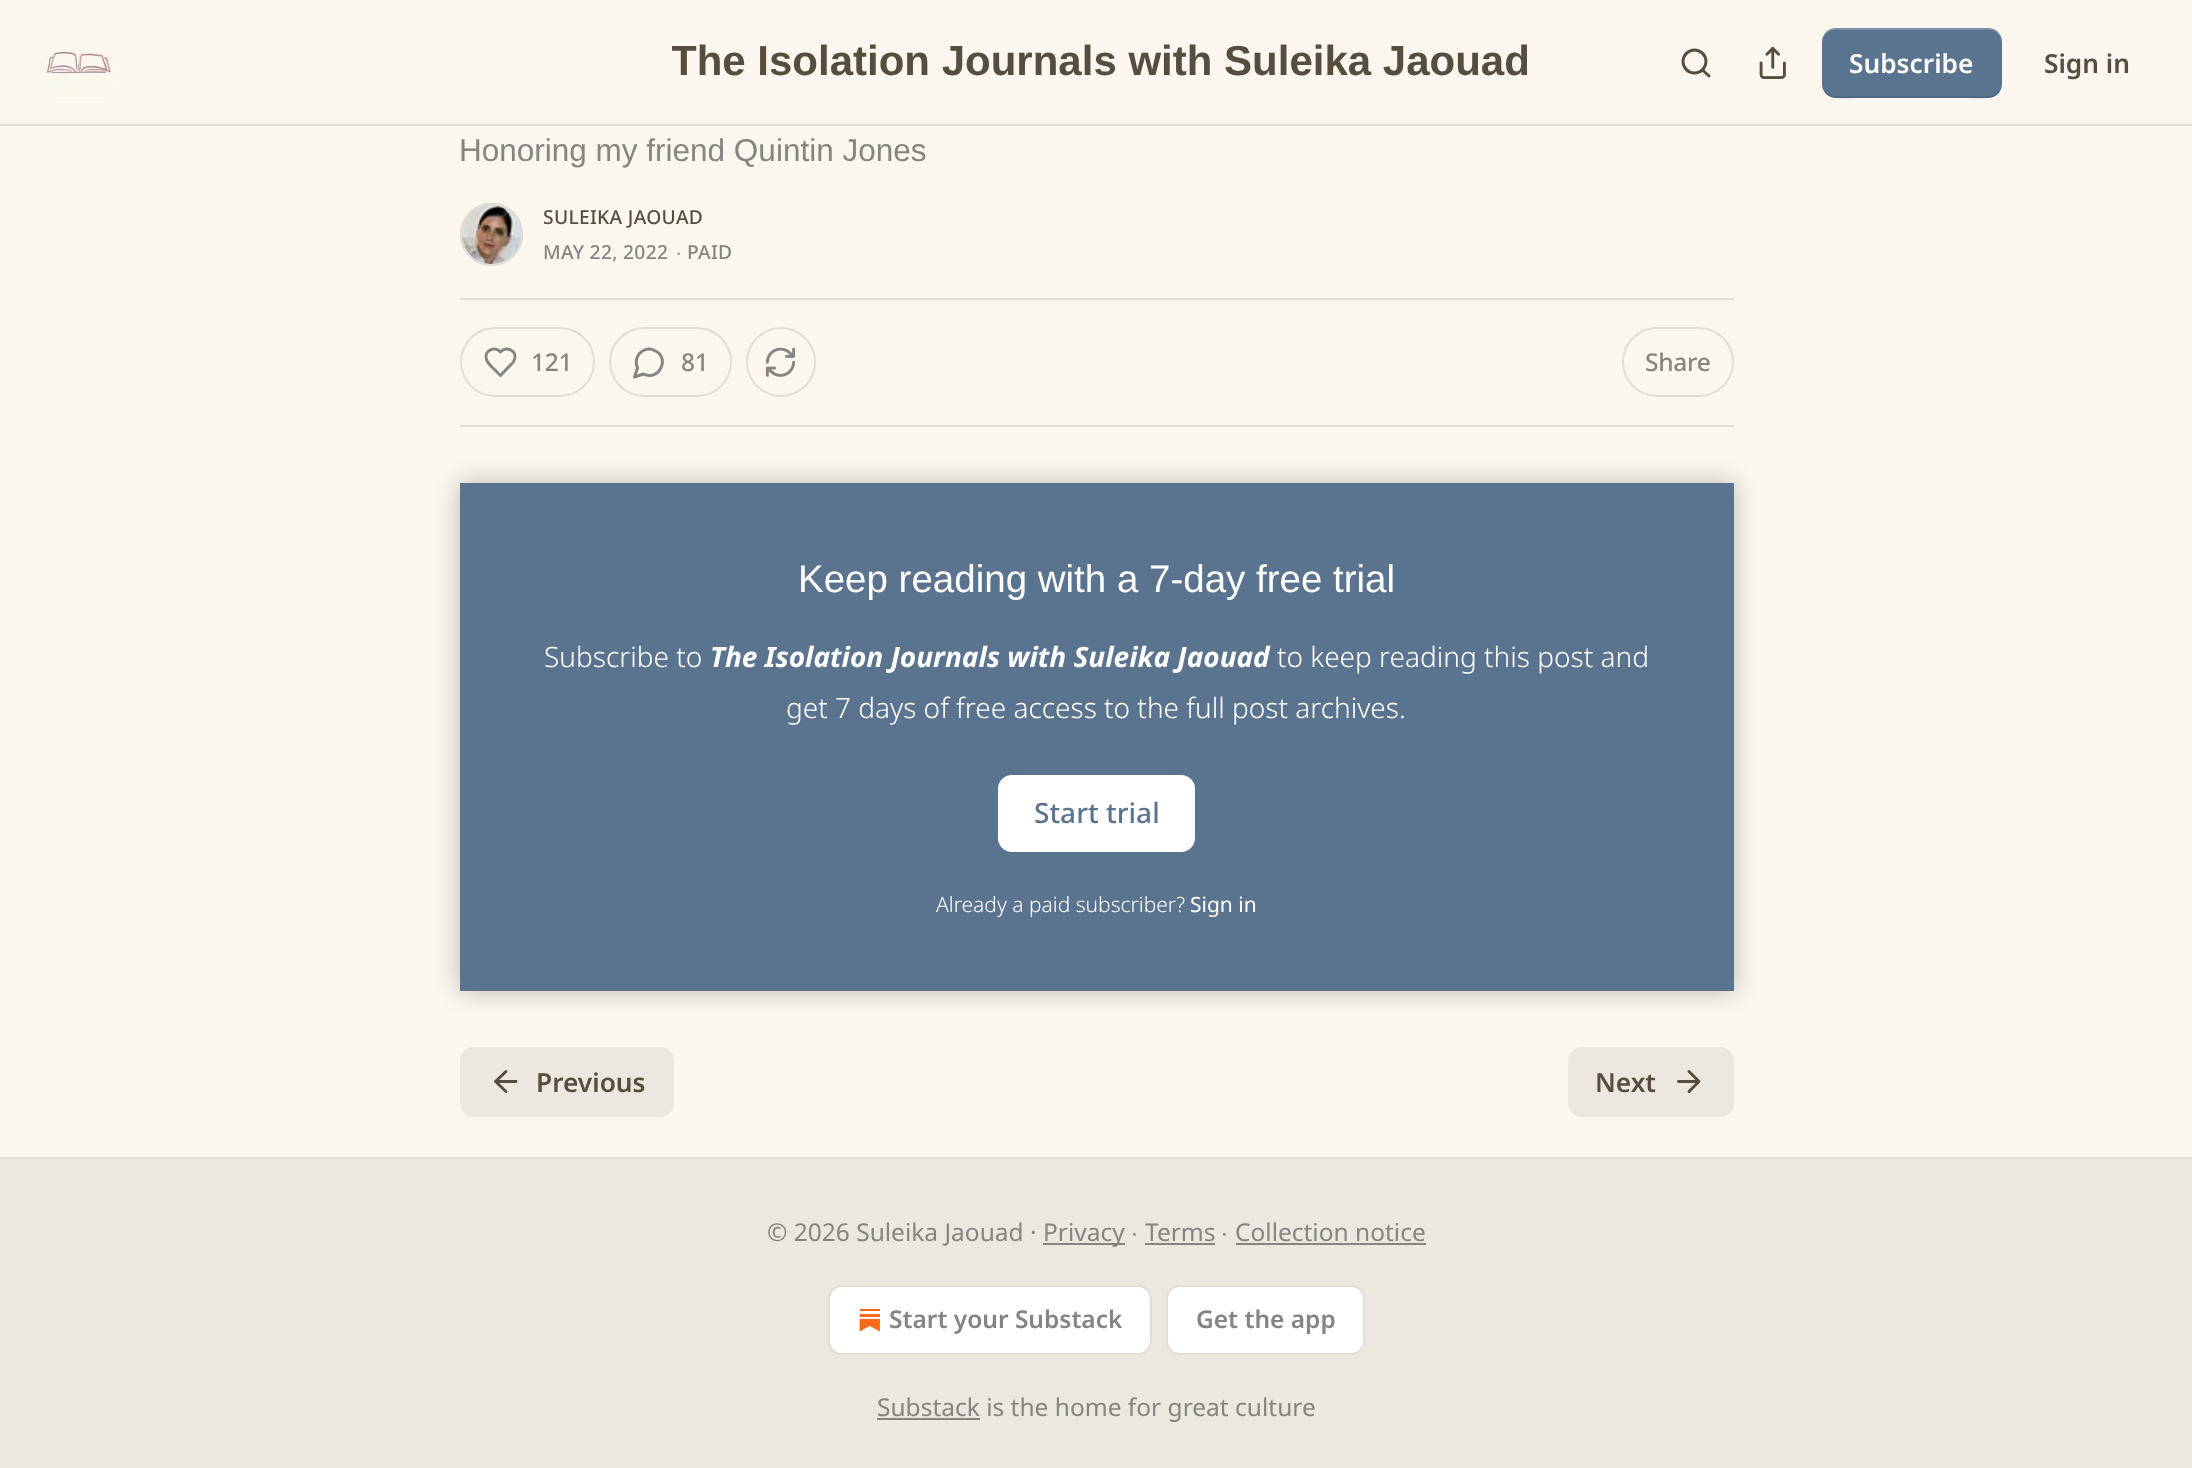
<!DOCTYPE html>
<meta charset="utf-8">
<style>body { margin: 0 } canvas { display: block }</style>
<canvas id="canvas" width="2192" height="1468"></canvas>
<img id="img1" src="images/1.png" hidden>
<img id="img2" src="images/2.png" hidden>
<img id="img3" src="images/3.png" hidden>
<img id="img4" src="images/4.png" hidden>
<img id="img5" src="images/5.png" hidden>
<script>
window.onload = function () {
    const canvas = document.getElementById('canvas');
    const context = canvas.getContext('2d');
    context.miterLimit = 4;
    context.fontKerning = 'normal';

    context.fillStyle = 'rgb(251, 247, 238)';
    context.fillRect(0, 0, 2192, 1468);
    context.fillStyle = 'rgb(226, 222, 214)';
    context.fillRect(0, 124, 2192, 2);
    context.fillStyle = 'rgb(255, 255, 255)';
    context.beginPath();
    context.roundRect(44, 28, 70, 70, 14);
    context.fill();
    context.drawImage(document.getElementById('img1'), 44, 28, 70, 70);
    context.beginPath();
    context.arc(1694.5, 61.5, 11.5, 0, 2 * Math.PI);
    context.strokeStyle = 'rgb(85, 78, 62)';
    context.lineWidth = 2.9;
    context.stroke();
    context.beginPath();
    context.moveTo(1709, 76);
    context.lineTo(1702.5, 70);
    context.lineCap = 'round';
    context.lineJoin = 'round';
    context.stroke();
    context.drawImage(document.getElementById('img2'), 1759, 47, 27, 32);
    context.fillStyle = 'rgb(90, 116, 144)';
    context.beginPath();
    context.roundRect(1822, 28, 180, 70, 14);
    context.fill();
    context.fillStyle = 'rgba(0, 0, 0, 0.1)';
    context.beginPath();
    context.moveTo(1822, 82);
    context.bezierCurveTo(1822, 104, 1846, 98, 1861, 98);
    context.lineTo(1963, 98);
    context.bezierCurveTo(1978, 98, 2002, 104, 2002, 82);
    context.bezierCurveTo(2002, 90, 1996, 96, 1988, 96);
    context.lineTo(1836, 96);
    context.bezierCurveTo(1828, 96, 1822, 90, 1822, 82);
    context.closePath();
    context.fill();
    context.fillStyle = 'rgba(255, 255, 255, 0.2)';
    context.beginPath();
    context.moveTo(1836, 30);
    context.lineTo(1988, 30);
    context.bezierCurveTo(1996, 30, 2002, 36, 2002, 44);
    context.bezierCurveTo(2002, 22, 1978, 28, 1963, 28);
    context.lineTo(1861, 28);
    context.bezierCurveTo(1846, 28, 1822, 22, 1822, 44);
    context.bezierCurveTo(1822, 36, 1828, 30, 1836, 30);
    context.closePath();
    context.fill();
    context.beginPath();
    context.arc(491.5, 234.5, 30.5, 0, 2 * Math.PI);
    context.strokeStyle = 'rgb(226, 222, 214)';
    context.lineWidth = 2;
    context.stroke();
    context.drawImage(document.getElementById('img3'), 460, 202, 63, 64);
    context.beginPath();
    context.arc(491.5, 234.5, 30.5, 0, 2 * Math.PI);
    context.stroke();
    context.fillStyle = 'rgb(226, 222, 214)';
    context.fillRect(460, 298, 1274, 2);
    context.fillRect(460, 425, 1274, 2);
    context.beginPath();
    context.roundRect(461, 328, 133, 68, 34);
    context.lineJoin = 'miter';
    context.stroke();
    context.beginPath();
    context.moveTo(510.5, 365);
    context.bezierCurveTo(512.5, 363.5, 514, 361.5, 514.5, 359.5);
    context.bezierCurveTo(517.5, 350.5, 506.5, 346, 500.5, 352);
    context.bezierCurveTo(494.5, 346, 483.5, 350.5, 486.5, 359.5);
    context.bezierCurveTo(487.5, 363, 491, 366, 493.5, 368.5);
    context.lineTo(500.5, 375.5);
    context.closePath();
    context.strokeStyle = 'rgb(133, 132, 128)';
    context.lineWidth = 2.9;
    context.lineJoin = 'round';
    context.stroke();
    context.beginPath();
    context.roundRect(610, 328, 121, 68, 34);
    context.strokeStyle = 'rgb(226, 222, 214)';
    context.lineWidth = 2;
    context.lineJoin = 'miter';
    context.stroke();
    context.beginPath();
    context.moveTo(643.5, 374);
    context.bezierCurveTo(659, 382, 671, 357.5, 654.5, 350.5);
    context.bezierCurveTo(651, 348.5, 647, 348.5, 643.5, 350.5);
    context.bezierCurveTo(637, 353.5, 634.5, 361.5, 637.5, 368);
    context.lineTo(634.5, 377);
    context.closePath();
    context.strokeStyle = 'rgb(133, 132, 128)';
    context.lineWidth = 2.9;
    context.lineJoin = 'round';
    context.stroke();
    context.beginPath();
    context.arc(781, 362, 34, 0, 2 * Math.PI);
    context.strokeStyle = 'rgb(226, 222, 214)';
    context.lineWidth = 2;
    context.stroke();
    context.drawImage(document.getElementById('img4'), 765, 347, 31, 30);
    context.beginPath();
    context.roundRect(1623, 328, 110, 68, 34);
    context.lineJoin = 'miter';
    context.stroke();
    context.fillStyle = 'rgb(90, 116, 144)';
    context.fillRect(460, 483, 1274, 508);
    context.fillStyle = 'rgb(255, 255, 255)';
    context.beginPath();
    context.roundRect(999, 776, 195, 75, 13);
    context.fill();
    context.strokeStyle = 'rgb(255, 255, 255)';
    context.stroke();
    context.save();
    context.beginPath();
    context.moveTo(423, 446);
    context.lineTo(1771, 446);
    context.lineTo(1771, 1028);
    context.lineTo(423, 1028);
    context.closePath();
    context.moveTo(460, 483);
    context.lineTo(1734, 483);
    context.lineTo(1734, 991);
    context.lineTo(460, 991);
    context.closePath();
    context.clip('evenodd');
    context.fillStyle = 'rgba(0, 0, 0, 0.25)';
    context.filter = 'blur(12px)';
    context.beginPath();
    context.rect(460, 483, 1274, 508);
    context.fill();
    context.filter = 'none';
    context.restore();
    context.fillStyle = 'rgb(236, 232, 224)';
    context.beginPath();
    context.roundRect(460, 1047, 214, 70, 14);
    context.fill();
    context.beginPath();
    context.moveTo(506, 1091.5);
    context.lineTo(495.5, 1081.5);
    context.lineTo(506, 1071.5);
    context.moveTo(516, 1081.5);
    context.lineTo(495.5, 1081.5);
    context.strokeStyle = 'rgb(85, 78, 62)';
    context.lineWidth = 2.9;
    context.lineJoin = 'round';
    context.stroke();
    context.beginPath();
    context.roundRect(1568, 1047, 166, 70, 14);
    context.fill();
    context.beginPath();
    context.moveTo(1678.5, 1081.5);
    context.lineTo(1699, 1081.5);
    context.moveTo(1689, 1071.5);
    context.lineTo(1699, 1081.5);
    context.lineTo(1689, 1091.5);
    context.stroke();
    context.fillRect(0, 1159, 2192, 309);
    context.fillStyle = 'rgb(226, 222, 214)';
    context.fillRect(0, 1157, 2192, 2);
    context.fillStyle = 'rgb(133, 132, 128)';
    context.fillRect(1043, 1243, 82, 2);
    context.fillRect(1145, 1243, 70, 2);
    context.fillRect(1236, 1243, 190, 2);
    context.fillStyle = 'rgb(255, 255, 255)';
    context.beginPath();
    context.roundRect(829, 1286, 322, 68, 13);
    context.fill();
    context.strokeStyle = 'rgb(226, 222, 214)';
    context.lineWidth = 2;
    context.lineJoin = 'miter';
    context.stroke();
    context.drawImage(document.getElementById('img5'), 859, 1309, 21, 23);
    context.beginPath();
    context.roundRect(1167, 1286, 197, 68, 13);
    context.fill();
    context.stroke();
    context.fillStyle = 'rgb(133, 132, 128)';
    context.fillRect(877, 1418, 103, 2);
    context.save();
    context.beginPath();
    context.rect(672, 33, 858, 58);
    context.clip();
    context.font = 'bold 42px Liberation Sans';
    context.fillStyle = 'rgb(85, 78, 62)';
    context.fillText('The Isolation Journals with Suleika Jaouad', 671, 75);
    context.restore();
    context.font = '600 26.25px Noto Sans';
    context.fillStyle = 'rgb(255, 255, 255)';
    context.fillText('Subscribe', 1849, 73);
    context.fillStyle = 'rgb(85, 78, 62)';
    context.fillText('Sign in', 2044, 73);
    context.font = '31.5px Liberation Sans';
    context.fillStyle = 'rgb(133, 132, 128)';
    context.fillText('Honoring my friend Quintin Jones', 459, 161);
    context.letterSpacing = '0.3px';
    context.font = '500 19.25px Noto Sans';
    context.fillStyle = 'rgb(85, 78, 62)';
    context.fillText('SULEIKA JAOUAD', 543, 224);
    context.fillStyle = 'rgb(133, 132, 128)';
    context.fillText('MAY 22, 2022', 543, 259);
    context.font = '19.25px Liberation Sans';
    context.fillText('∙', 676, 259);
    context.font = '500 19.25px Noto Sans';
    context.fillText('PAID', 687, 259);
    context.letterSpacing = '-0.25px';
    context.font = '500 24.5px Noto Sans';
    context.fillText('121', 531, 371);
    context.fillText('81', 681, 371);
    context.fillText('Share', 1645, 371);
    context.letterSpacing = '0px';
    context.font = '38.5px Liberation Sans';
    context.fillStyle = 'rgb(255, 255, 255)';
    context.fillText('Keep reading with a 7-day free trial', 798, 592);
    context.font = '300 28px Noto Sans';
    context.fillText('Subscribe to', 544, 667);
    context.font = 'italic bold 28px Noto Sans';
    context.fillText('The Isolation Journals with Suleika Jaouad', 710, 667);
    context.font = '300 28px Noto Sans';
    context.fillText('to keep reading this post and', 1277, 667);
    context.fillText('get 7 days of free access to the full post archives.', 786, 718);
    context.font = '500 28px Noto Sans';
    context.fillStyle = 'rgb(90, 116, 144)';
    context.fillText('Start trial', 1034, 823);
    context.font = '300 21px Noto Sans';
    context.fillStyle = 'rgb(255, 255, 255)';
    context.fillText('Already a paid subscriber?', 936, 912);
    context.font = '21px Noto Sans';
    context.fillText('Sign in', 1190, 912);
    context.font = '600 26.25px Noto Sans';
    context.fillStyle = 'rgb(85, 78, 62)';
    context.fillText('Previous', 536, 1092);
    context.fillText('Next', 1595, 1092);
    context.font = '24.5px Noto Sans';
    context.fillStyle = 'rgb(133, 132, 128)';
    context.fillText('© 2026 Suleika Jaouad ·', 767, 1241);
    context.fillText('Privacy', 1043, 1241);
    context.font = '24.5px Liberation Sans';
    context.fillText('∙', 1131, 1241);
    context.font = '24.5px Noto Sans';
    context.fillText('Terms', 1145, 1241);
    context.font = '24.5px Liberation Sans';
    context.fillText('∙', 1221, 1241);
    context.font = '24.5px Noto Sans';
    context.fillText('Collection notice', 1235, 1241);
    context.font = '600 24.5px Noto Sans';
    context.fillText('Start your Substack', 889, 1328);
    context.fillText('Get the app', 1196, 1328);
    context.font = '24.5px Noto Sans';
    context.fillText('Substack is the home for great culture', 877, 1416);
};
</script>
